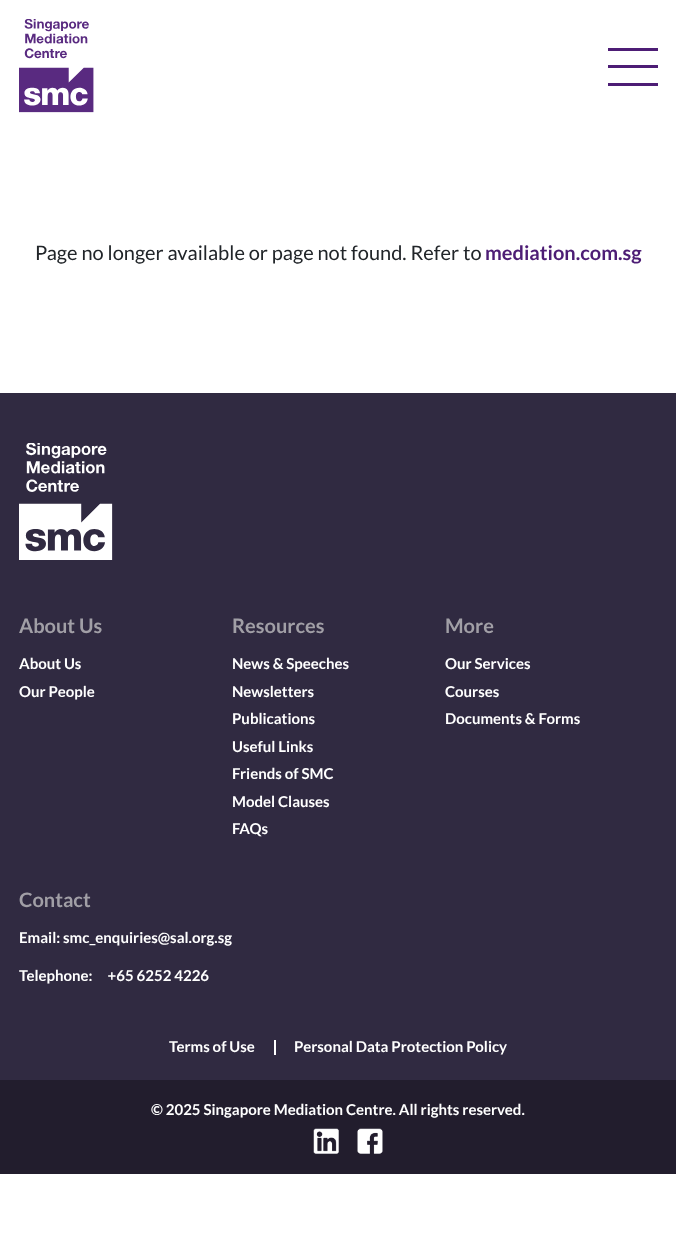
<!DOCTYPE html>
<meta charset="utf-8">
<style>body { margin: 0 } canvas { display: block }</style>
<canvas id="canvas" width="676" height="1236"></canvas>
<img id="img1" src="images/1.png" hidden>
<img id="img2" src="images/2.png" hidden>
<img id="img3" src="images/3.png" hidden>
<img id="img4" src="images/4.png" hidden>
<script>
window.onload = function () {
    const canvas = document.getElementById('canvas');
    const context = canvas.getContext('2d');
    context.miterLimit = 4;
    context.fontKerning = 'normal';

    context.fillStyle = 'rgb(255, 255, 255)';
    context.fillRect(0, 0, 676, 1236);
    context.drawImage(document.getElementById('img1'), 19, 19, 75, 94);
    context.fillStyle = 'rgb(77, 29, 117)';
    context.fillRect(608, 48, 50, 3);
    context.fillRect(608, 65, 50, 3);
    context.fillRect(608, 83, 50, 3);
    context.fillStyle = 'rgb(48, 42, 65)';
    context.fillRect(0, 393, 676, 687);
    context.drawImage(document.getElementById('img2'), 19, 443, 94, 117);
    context.fillStyle = 'rgb(255, 255, 255)';
    context.fillRect(274, 1040, 2, 15);
    context.fillStyle = 'rgb(34, 29, 45)';
    context.fillRect(0, 1080, 676, 94);
    context.drawImage(document.getElementById('img3'), 313, 1128, 26, 26);
    context.drawImage(document.getElementById('img4'), 357, 1128, 26, 26);
    context.font = '20px Lato';
    context.fillStyle = 'rgb(33, 37, 41)';
    context.fillText('Page no longer available or page not found. Refer to', 35, 260);
    context.font = 'bold 20px Lato';
    context.fillStyle = 'rgb(77, 29, 117)';
    context.fillText('mediation.com.sg', 485, 260);
    context.fillStyle = 'rgb(161, 159, 166)';
    context.fillText('About Us', 19, 633);
    context.font = 'bold 15px Lato';
    context.fillStyle = 'rgb(255, 255, 255)';
    context.fillText('About Us', 19, 669);
    context.fillText('Our People', 19, 697);
    context.font = 'bold 20px Lato';
    context.fillStyle = 'rgb(161, 159, 166)';
    context.fillText('Resources', 232, 633);
    context.font = 'bold 15px Lato';
    context.fillStyle = 'rgb(255, 255, 255)';
    context.fillText('News & Speeches', 232, 669);
    context.fillText('Newsletters', 232, 697);
    context.fillText('Publications', 232, 724);
    context.fillText('Useful Links', 232, 752);
    context.fillText('Friends of SMC', 232, 779);
    context.fillText('Model Clauses', 232, 807);
    context.fillText('FAQs', 232, 834);
    context.font = 'bold 20px Lato';
    context.fillStyle = 'rgb(161, 159, 166)';
    context.fillText('More', 445, 633);
    context.font = 'bold 15px Lato';
    context.fillStyle = 'rgb(255, 255, 255)';
    context.fillText('Our Services', 445, 669);
    context.fillText('Courses', 445, 697);
    context.fillText('Documents & Forms', 445, 724);
    context.font = 'bold 20px Lato';
    context.fillStyle = 'rgb(161, 159, 166)';
    context.fillText('Contact', 19, 907);
    context.font = 'bold 15px Lato';
    context.fillStyle = 'rgb(255, 255, 255)';
    context.fillText('Email: smc_enquiries@sal.org.sg', 19, 943);
    context.fillText('Telephone:  +65 6252 4226', 19, 981);
    context.fillText('Terms of Use', 169, 1052);
    context.fillText('Personal Data Protection Policy', 294, 1052);
    context.fillText('© 2025 Singapore Mediation Centre. All rights reserved.', 151, 1115);
};
</script>
